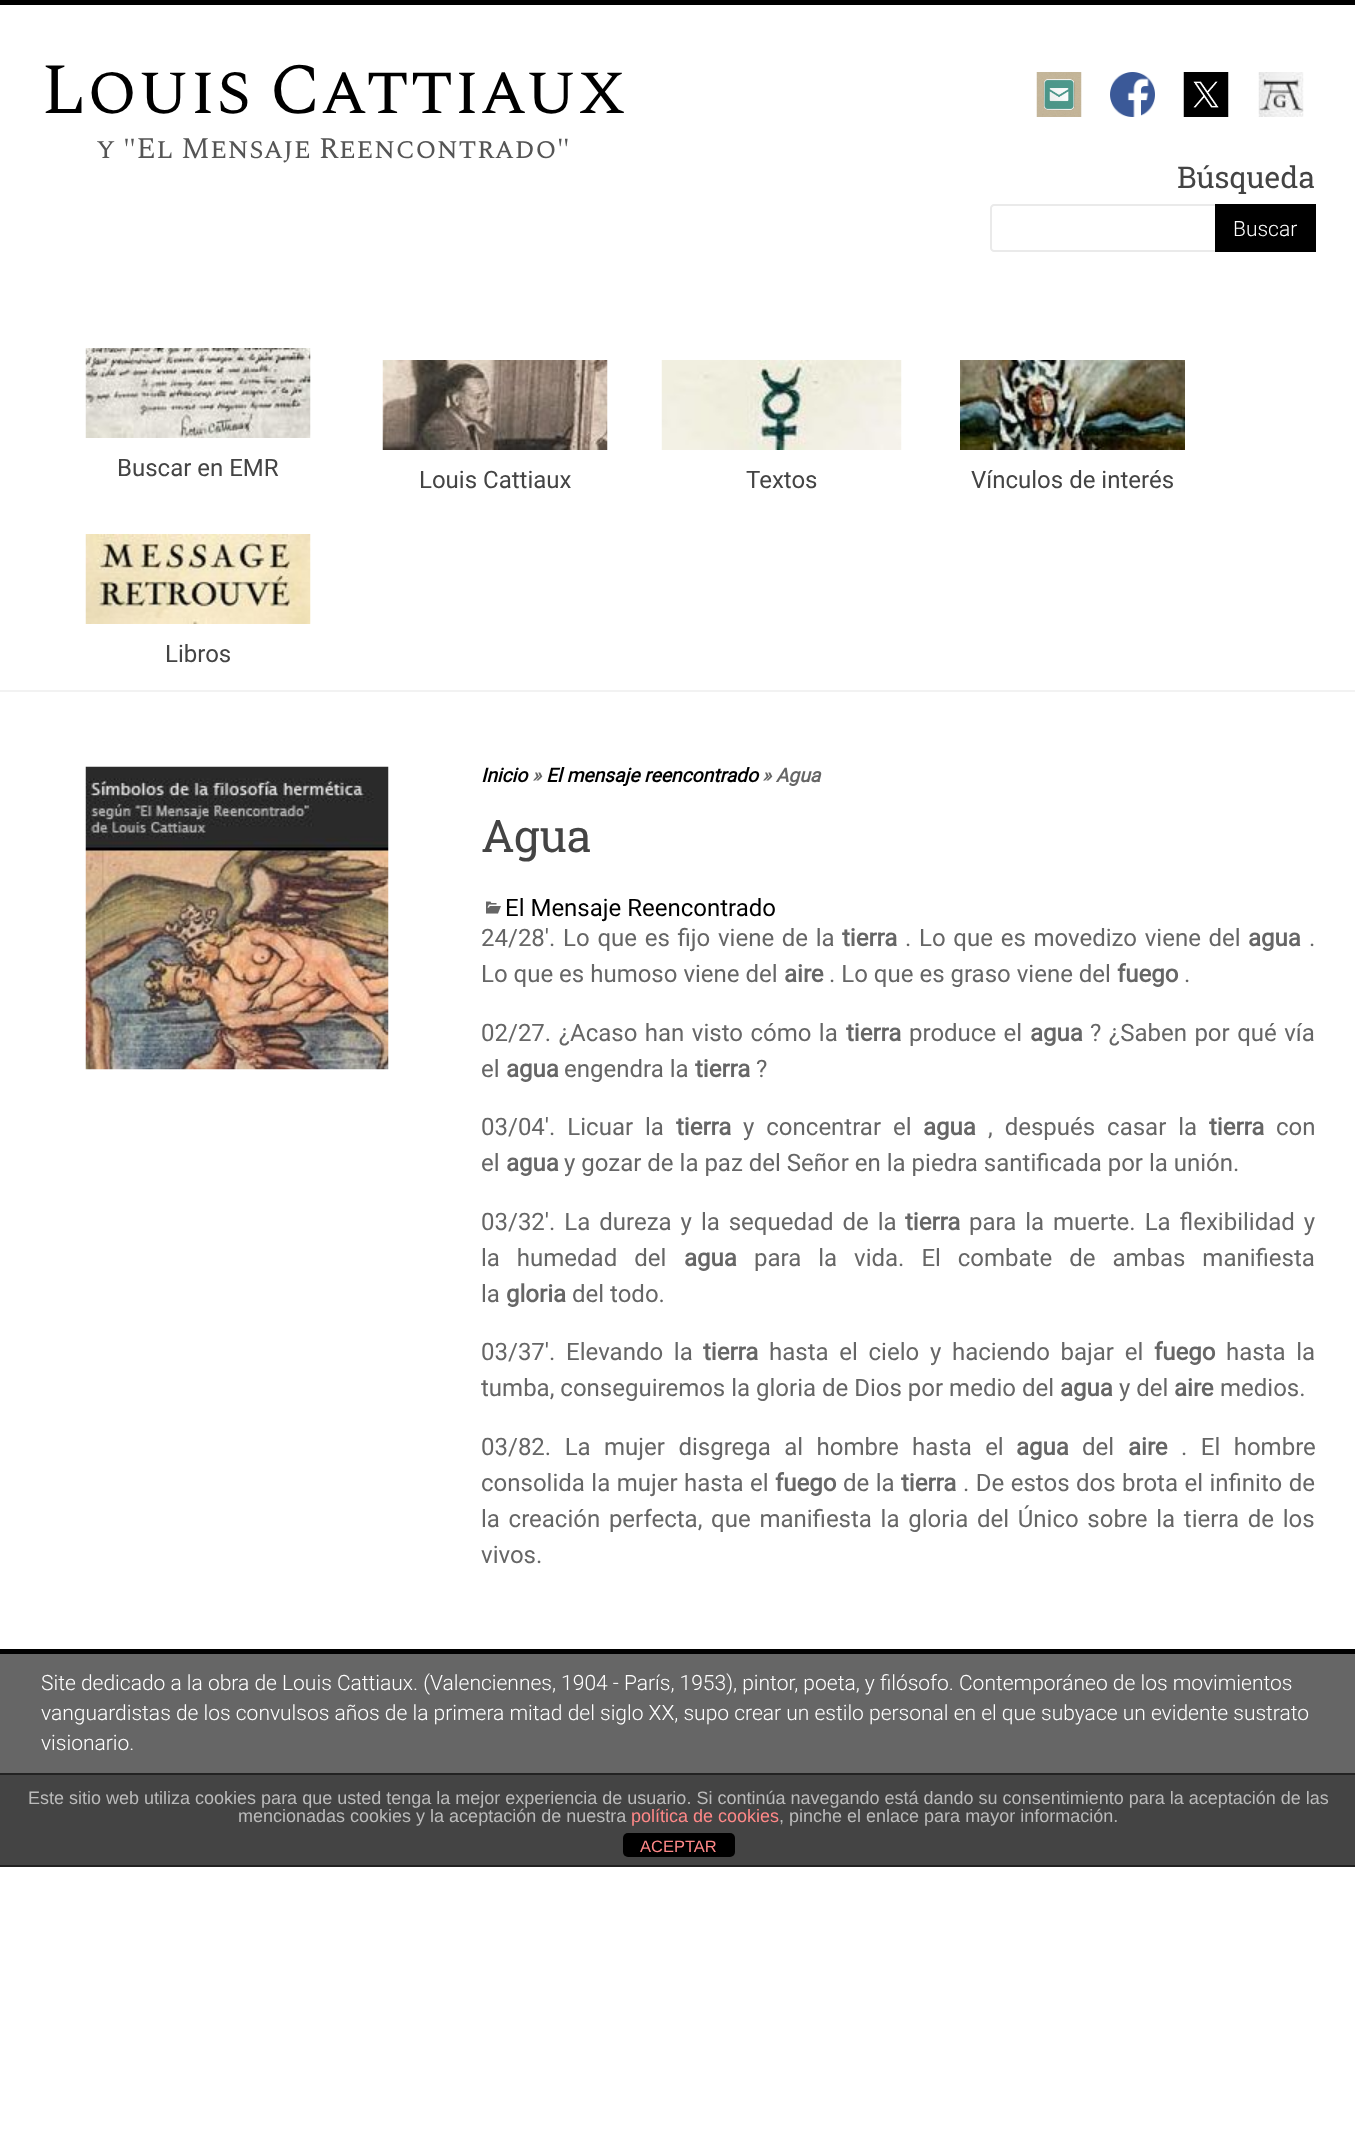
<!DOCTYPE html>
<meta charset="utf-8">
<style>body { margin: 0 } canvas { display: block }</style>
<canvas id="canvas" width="1355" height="2138"></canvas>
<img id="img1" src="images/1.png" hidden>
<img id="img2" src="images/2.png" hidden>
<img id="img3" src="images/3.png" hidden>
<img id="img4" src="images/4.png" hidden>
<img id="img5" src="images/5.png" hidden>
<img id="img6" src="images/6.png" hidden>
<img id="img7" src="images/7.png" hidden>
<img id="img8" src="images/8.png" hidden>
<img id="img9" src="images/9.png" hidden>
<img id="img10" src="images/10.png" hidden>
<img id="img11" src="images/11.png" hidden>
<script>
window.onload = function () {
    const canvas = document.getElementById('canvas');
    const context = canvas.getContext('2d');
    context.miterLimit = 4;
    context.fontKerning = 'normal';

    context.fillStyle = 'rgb(255, 255, 255)';
    context.fillRect(0, 0, 1355, 2138);
    context.fillStyle = 'rgb(0, 0, 0)';
    context.fillRect(0, 0, 1355, 5);
    context.fillStyle = 'rgb(242, 242, 242)';
    context.fillRect(0, 690, 1355, 2);
    context.drawImage(document.getElementById('img1'), 1036, 72, 46, 45);
    context.drawImage(document.getElementById('img2'), 1110, 72, 45, 45);
    context.drawImage(document.getElementById('img3'), 1183, 72, 46, 45);
    context.drawImage(document.getElementById('img4'), 1258, 72, 46, 45);
    context.fillStyle = 'rgb(234, 234, 234)';
    context.beginPath();
    context.moveTo(994, 204);
    context.lineTo(1215, 204);
    context.lineTo(1215, 252);
    context.lineTo(994, 252);
    context.bezierCurveTo(992, 252, 990, 250, 990, 248);
    context.lineTo(990, 208);
    context.bezierCurveTo(990, 206, 992, 204, 994, 204);
    context.closePath();
    context.moveTo(994, 206);
    context.lineTo(1215, 206);
    context.lineTo(1215, 250);
    context.lineTo(994, 250);
    context.bezierCurveTo(993, 250, 992, 249, 992, 248);
    context.lineTo(992, 208);
    context.bezierCurveTo(992, 207, 993, 206, 994, 206);
    context.closePath();
    context.fill('evenodd');
    context.fillStyle = 'rgb(0, 0, 0)';
    context.fillRect(1215, 204, 101, 48);
    context.drawImage(document.getElementById('img5'), 85, 348, 226, 90);
    context.drawImage(document.getElementById('img6'), 382, 360, 226, 90);
    context.drawImage(document.getElementById('img7'), 661, 360, 241, 90);
    context.drawImage(document.getElementById('img8'), 960, 360, 225, 90);
    context.drawImage(document.getElementById('img9'), 85, 534, 226, 90);
    context.drawImage(document.getElementById('img10'), 85, 766, 304, 304);
    context.drawImage(document.getElementById('img11'), 486, 901, 15, 13);
    context.fillStyle = 'rgb(102, 102, 102)';
    context.fillRect(0, 1654, 1355, 119);
    context.fillStyle = 'rgb(0, 0, 0)';
    context.fillRect(0, 1649, 1355, 5);
    context.fillStyle = 'rgb(68, 68, 68)';
    context.fillRect(0, 1775, 1355, 90);
    context.fillStyle = 'rgb(34, 34, 34)';
    context.fillRect(0, 1773, 1355, 2);
    context.fillRect(0, 1865, 1355, 2);
    context.fillStyle = 'rgb(0, 0, 0)';
    context.beginPath();
    context.roundRect(623, 1833, 112, 24, 5);
    context.fill();
    context.font = '72px Spectral SC';
    context.fillText('Louis Cattiaux', 41, 113);
    context.font = '30px Spectral SC';
    context.fillStyle = 'rgb(85, 85, 85)';
    context.fillText('y "El Mensaje Reencontrado"', 96, 158);
    context.font = '30px Roboto Slab';
    context.fillStyle = 'rgb(68, 68, 68)';
    context.fillText('Búsqueda', 1177, 188);
    context.font = '300 21px Roboto';
    context.fillStyle = 'rgb(255, 255, 255)';
    context.fillText('Buscar', 1233, 236);
    context.font = '24px Roboto';
    context.fillStyle = 'rgb(68, 68, 68)';
    context.fillText('Buscar en EMR', 117, 476);
    context.fillText('Louis Cattiaux', 419, 488);
    context.fillText('Textos', 746, 488);
    context.fillText('Vínculos de interés', 971, 488);
    context.fillText('Libros', 165, 662);
    context.font = 'italic bold 19.25px Roboto';
    context.fillStyle = 'rgb(0, 0, 0)';
    context.fillText('Inicio', 481, 782);
    context.fillStyle = 'rgb(102, 102, 102)';
    context.fillText('»', 532, 782);
    context.fillStyle = 'rgb(0, 0, 0)';
    context.fillText('El mensaje reencontrado', 546, 782);
    context.fillStyle = 'rgb(102, 102, 102)';
    context.fillText('» Agua', 762, 782);
    context.font = '45px Roboto Slab';
    context.fillStyle = 'rgb(68, 68, 68)';
    context.fillText('Agua', 481, 852);
    context.font = '24px Roboto';
    context.fillStyle = 'rgb(0, 0, 0)';
    context.fillText('El Mensaje Reencontrado', 505, 916);
    context.wordSpacing = '1.75px';
    context.fillStyle = 'rgb(102, 102, 102)';
    context.fillText('24/28′. Lo que es fijo viene de la', 481, 946);
    context.wordSpacing = '0px';
    context.font = 'bold 24px Roboto';
    context.fillText('tierra', 842, 946);
    context.wordSpacing = '1.75px';
    context.font = '24px Roboto';
    context.fillText('. Lo que es movedizo viene del', 905, 946);
    context.wordSpacing = '0px';
    context.font = 'bold 24px Roboto';
    context.fillText('agua', 1248, 946);
    context.font = '24px Roboto';
    context.fillText('.', 1309, 946);
    context.fillText('Lo que es humoso viene del', 481, 982);
    context.font = 'bold 24px Roboto';
    context.fillText('aire', 784, 982);
    context.font = '24px Roboto';
    context.fillText('. Lo que es graso viene del', 829, 982);
    context.font = 'bold 24px Roboto';
    context.fillText('fuego', 1117, 982);
    context.font = '24px Roboto';
    context.fillText('.', 1184, 982);
    context.wordSpacing = '1.5px';
    context.fillText('02/27. ¿Acaso han visto cómo la', 481, 1041);
    context.wordSpacing = '0px';
    context.font = 'bold 24px Roboto';
    context.fillText('tierra', 846, 1041);
    context.wordSpacing = '1.5px';
    context.font = '24px Roboto';
    context.fillText('produce el', 909, 1041);
    context.wordSpacing = '0px';
    context.font = 'bold 24px Roboto';
    context.fillText('agua', 1030, 1041);
    context.wordSpacing = '1.5px';
    context.font = '24px Roboto';
    context.fillText('? ¿Saben por qué vía', 1090, 1041);
    context.wordSpacing = '0px';
    context.fillText('el', 481, 1077);
    context.font = 'bold 24px Roboto';
    context.fillText('agua', 506, 1077);
    context.font = '24px Roboto';
    context.fillText('engendra la', 564, 1077);
    context.font = 'bold 24px Roboto';
    context.fillText('tierra', 695, 1077);
    context.font = '24px Roboto';
    context.fillText('?', 756, 1077);
    context.wordSpacing = '6px';
    context.fillText('03/04′. Licuar la', 481, 1135);
    context.wordSpacing = '0px';
    context.font = 'bold 24px Roboto';
    context.fillText('tierra', 676, 1135);
    context.wordSpacing = '6px';
    context.font = '24px Roboto';
    context.fillText('y concentrar el', 743, 1135);
    context.wordSpacing = '0px';
    context.font = 'bold 24px Roboto';
    context.fillText('agua', 923, 1135);
    context.wordSpacing = '6px';
    context.font = '24px Roboto';
    context.fillText(', después casar la', 988, 1135);
    context.wordSpacing = '0px';
    context.font = 'bold 24px Roboto';
    context.fillText('tierra', 1209, 1135);
    context.font = '24px Roboto';
    context.fillText('con', 1276, 1135);
    context.fillText('el', 481, 1171);
    context.font = 'bold 24px Roboto';
    context.fillText('agua', 506, 1171);
    context.font = '24px Roboto';
    context.fillText('y gozar de la paz del Señor en la piedra santificada por la unión.', 564, 1171);
    context.wordSpacing = '3px';
    context.fillText('03/32′. La dureza y la sequedad de la', 481, 1230);
    context.wordSpacing = '0px';
    context.font = 'bold 24px Roboto';
    context.fillText('tierra', 905, 1230);
    context.wordSpacing = '3px';
    context.font = '24px Roboto';
    context.fillText('para la muerte. La flexibilidad y', 969, 1230);
    context.wordSpacing = '11px';
    context.fillText('la humedad del', 481, 1266);
    context.wordSpacing = '0px';
    context.font = 'bold 24px Roboto';
    context.fillText('agua', 684, 1266);
    context.wordSpacing = '11px';
    context.font = '24px Roboto';
    context.fillText('para la vida. El combate de ambas manifiesta', 754, 1266);
    context.wordSpacing = '0px';
    context.fillText('la', 481, 1302);
    context.font = 'bold 24px Roboto';
    context.fillText('gloria', 506, 1302);
    context.font = '24px Roboto';
    context.fillText('del todo.', 572, 1302);
    context.wordSpacing = '4.75px';
    context.fillText('03/37′. Elevando la', 481, 1360);
    context.wordSpacing = '0px';
    context.font = 'bold 24px Roboto';
    context.fillText('tierra', 703, 1360);
    context.wordSpacing = '4.75px';
    context.font = '24px Roboto';
    context.fillText('hasta el cielo y haciendo bajar el', 769, 1360);
    context.wordSpacing = '0px';
    context.font = 'bold 24px Roboto';
    context.fillText('fuego', 1154, 1360);
    context.wordSpacing = '4.75px';
    context.font = '24px Roboto';
    context.fillText('hasta la', 1226, 1360);
    context.wordSpacing = '0px';
    context.fillText('tumba, conseguiremos la gloria de Dios por medio del', 481, 1396);
    context.font = 'bold 24px Roboto';
    context.fillText('agua', 1060, 1396);
    context.font = '24px Roboto';
    context.fillText('y del', 1119, 1396);
    context.font = 'bold 24px Roboto';
    context.fillText('aire', 1174, 1396);
    context.font = '24px Roboto';
    context.fillText('medios.', 1220, 1396);
    context.wordSpacing = '7.5px';
    context.fillText('03/82. La mujer disgrega al hombre hasta el', 481, 1455);
    context.wordSpacing = '0px';
    context.font = 'bold 24px Roboto';
    context.fillText('agua', 1016, 1455);
    context.font = '24px Roboto';
    context.fillText('del', 1082, 1455);
    context.font = 'bold 24px Roboto';
    context.fillText('aire', 1128, 1455);
    context.wordSpacing = '7.5px';
    context.font = '24px Roboto';
    context.fillText('. El hombre', 1181, 1455);
    context.wordSpacing = '0.5px';
    context.fillText('consolida la mujer hasta el', 481, 1491);
    context.wordSpacing = '0px';
    context.font = 'bold 24px Roboto';
    context.fillText('fuego', 775, 1491);
    context.wordSpacing = '0.5px';
    context.font = '24px Roboto';
    context.fillText('de la', 843, 1491);
    context.wordSpacing = '0px';
    context.font = 'bold 24px Roboto';
    context.fillText('tierra', 901, 1491);
    context.wordSpacing = '0.5px';
    context.font = '24px Roboto';
    context.fillText('. De estos dos brota el infinito de', 963, 1491);
    context.wordSpacing = '2.75px';
    context.fillText('la creación perfecta, que manifiesta la gloria del Único sobre la tierra de los', 481, 1527);
    context.wordSpacing = '0px';
    context.fillText('vivos.', 481, 1563);
    context.font = '300 21px Roboto';
    context.fillStyle = 'rgb(255, 255, 255)';
    context.fillText('Site dedicado a la obra de Louis Cattiaux. (Valenciennes, 1904 - París, 1953), pintor, poeta, y filósofo. Contemporáneo de los movimientos', 41, 1690);
    context.fillText('vanguardistas de los convulsos años de la primera mitad del siglo XX, supo crear un estilo personal en el que subyace un evidente sustrato', 41, 1720);
    context.fillText('visionario.', 41, 1750);
    context.font = '18px Liberation Sans';
    context.fillStyle = 'rgb(187, 187, 187)';
    context.fillText('Este sitio web utiliza cookies para que usted tenga la mejor experiencia de usuario. Si continúa navegando está dando su consentimiento para la aceptación de las', 28, 1804);
    context.fillText('mencionadas cookies y la aceptación de nuestra', 238, 1822);
    context.fillStyle = 'rgb(255, 136, 136)';
    context.fillText('política de cookies', 631, 1822);
    context.fillStyle = 'rgb(187, 187, 187)';
    context.fillText(', pinche el enlace para mayor información.', 779, 1822);
    context.font = '16.5px Liberation Sans';
    context.fillStyle = 'rgb(255, 136, 136)';
    context.fillText('ACEPTAR', 640, 1852);
};
</script>
